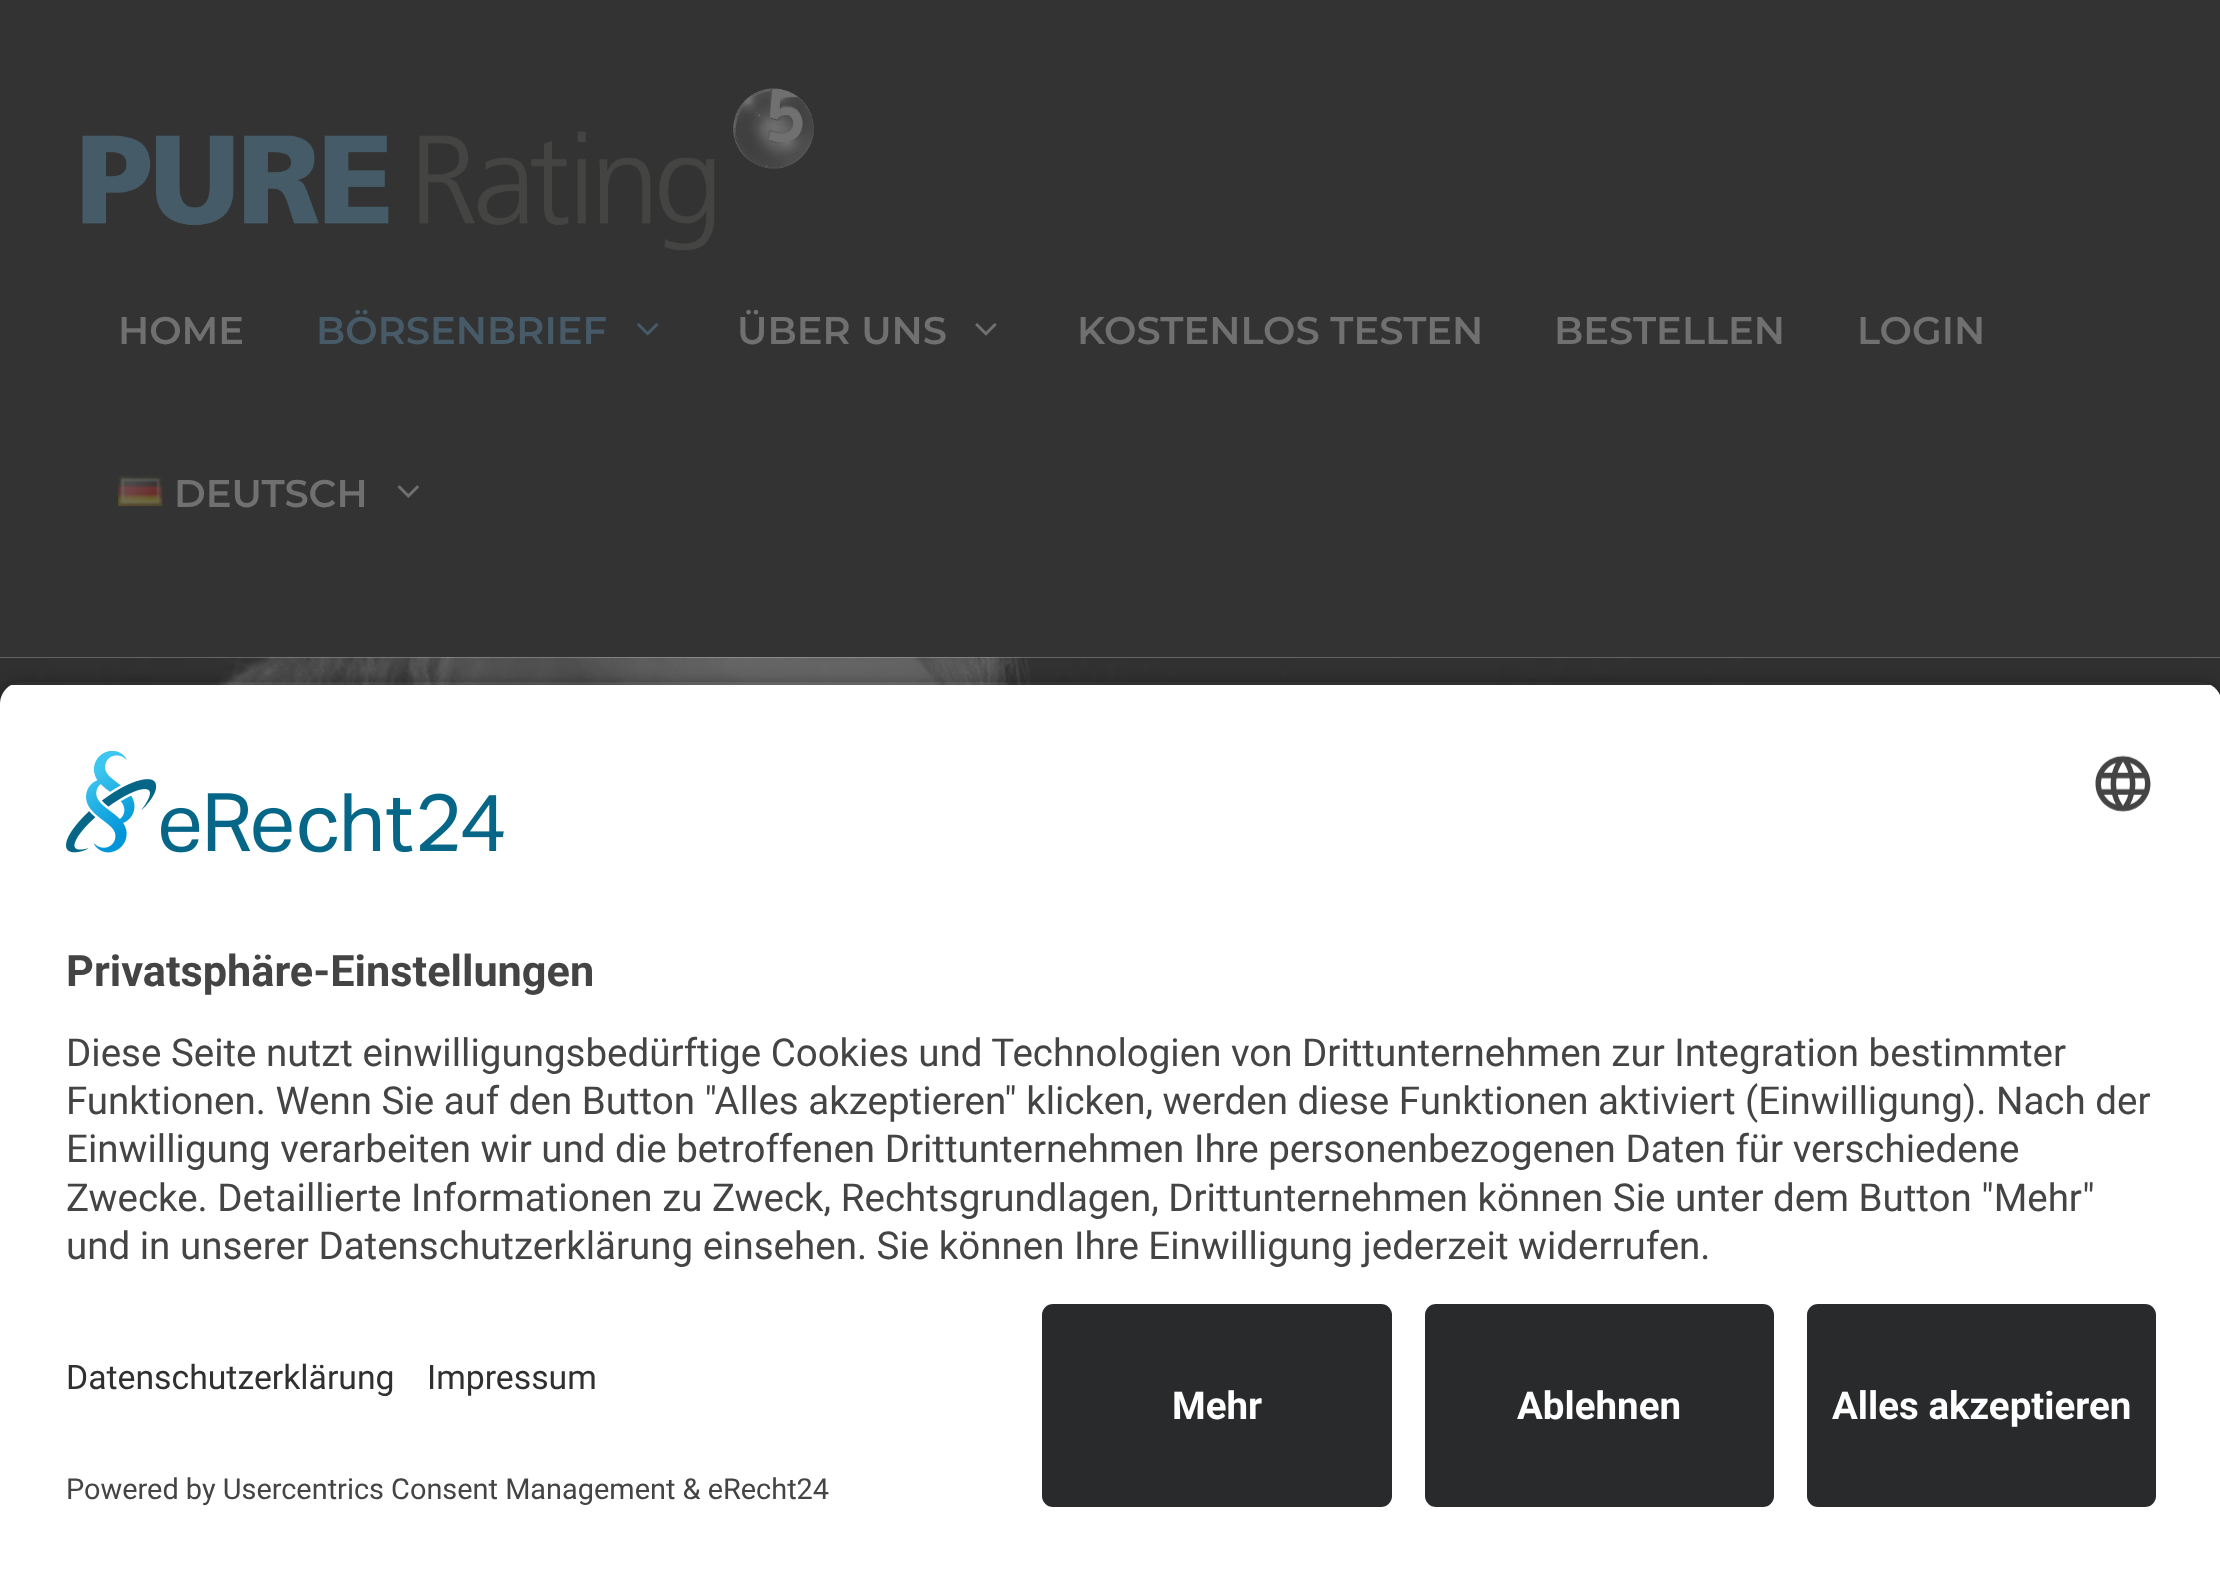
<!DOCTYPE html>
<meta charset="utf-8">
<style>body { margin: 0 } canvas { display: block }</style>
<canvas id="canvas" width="2220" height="1571"></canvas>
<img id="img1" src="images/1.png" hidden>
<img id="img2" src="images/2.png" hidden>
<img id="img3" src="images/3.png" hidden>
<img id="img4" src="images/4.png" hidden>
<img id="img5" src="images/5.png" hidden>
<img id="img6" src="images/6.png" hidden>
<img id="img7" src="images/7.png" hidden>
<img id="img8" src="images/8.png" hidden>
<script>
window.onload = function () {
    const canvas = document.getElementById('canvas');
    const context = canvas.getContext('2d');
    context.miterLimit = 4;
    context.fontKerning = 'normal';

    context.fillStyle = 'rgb(255, 255, 255)';
    context.fillRect(0, 0, 2220, 1571);
    context.fillStyle = 'rgb(51, 51, 51)';
    context.fillRect(0, 0, 2220, 657);
    context.drawImage(document.getElementById('img1'), 82, 88, 733, 163);
    context.drawImage(document.getElementById('img2'), 637, 323, 22, 13);
    context.drawImage(document.getElementById('img3'), 975, 323, 22, 13);
    context.drawImage(document.getElementById('img4'), 118, 475, 45, 31);
    context.drawImage(document.getElementById('img5'), 397, 485, 22, 13);
    context.drawImage(document.getElementById('img6'), 0, 657, 2220, 47);
    context.save();
    context.beginPath();
    context.moveTo(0, 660);
    context.lineTo(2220, 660);
    context.lineTo(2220, 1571);
    context.lineTo(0, 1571);
    context.closePath();
    context.moveTo(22, 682);
    context.lineTo(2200, 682);
    context.bezierCurveTo(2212, 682, 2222, 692, 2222, 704);
    context.lineTo(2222, 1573);
    context.lineTo(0, 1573);
    context.lineTo(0, 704);
    context.bezierCurveTo(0, 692, 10, 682, 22, 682);
    context.closePath();
    context.clip('evenodd');
    context.fillStyle = 'rgba(0, 0, 0, 0.8)';
    context.filter = 'blur(9.5px)';
    context.beginPath();
    context.roundRect(0, 690, 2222, 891, 22);
    context.fill();
    context.filter = 'none';
    context.restore();
    context.save();
    context.beginPath();
    context.moveTo(22, 682);
    context.lineTo(2200, 682);
    context.bezierCurveTo(2212, 682, 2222, 692, 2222, 704);
    context.lineTo(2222, 1282);
    context.lineTo(0, 1282);
    context.lineTo(0, 704);
    context.bezierCurveTo(0, 692, 10, 682, 22, 682);
    context.closePath();
    context.clip();
    context.fillStyle = 'rgb(255, 255, 255)';
    context.fillRect(0, 685, 2220, 597);
    context.restore();
    context.drawImage(document.getElementById('img7'), 66, 751, 438, 102);
    context.drawImage(document.getElementById('img8'), 2095, 755, 56, 57);
    context.fillStyle = 'rgb(41, 42, 43)';
    context.beginPath();
    context.roundRect(1042, 1304, 350, 203, 11);
    context.fill();
    context.beginPath();
    context.roundRect(1425, 1304, 349, 203, 11);
    context.fill();
    context.beginPath();
    context.roundRect(1807, 1304, 349, 203, 11);
    context.fill();
    context.font = '100 38.5px Montserrat';
    context.fillStyle = 'rgb(112, 112, 112)';
    context.fillText('HOME', 118, 344);
    context.fillStyle = 'rgb(70, 90, 104)';
    context.fillText('BÖRSENBRIEF', 316, 344);
    context.fillStyle = 'rgb(112, 112, 112)';
    context.fillText('ÜBER UNS', 737, 344);
    context.fillText('KOSTENLOS TESTEN', 1077, 344);
    context.fillText('BESTELLEN', 1554, 344);
    context.fillText('LOGIN', 1857, 344);
    context.fillText('DEUTSCH', 174, 507);
    context.font = 'bold 43.25px Roboto';
    context.fillStyle = 'rgb(68, 68, 68)';
    context.fillText('Privatsphäre-Einstellungen', 66, 986);
    context.font = '38.5px Roboto';
    context.fillText('Diese Seite nutzt einwilligungsbedürftige Cookies und Technologien von Drittunternehmen zur Integration bestimmter', 66, 1066);
    context.fillText('Funktionen. Wenn Sie auf den Button "Alles akzeptieren" klicken, werden diese Funktionen aktiviert (Einwilligung). Nach der', 66, 1114);
    context.fillText('Einwilligung verarbeiten wir und die betroffenen Drittunternehmen Ihre personenbezogenen Daten für verschiedene', 66, 1162);
    context.fillText('Zwecke. Detaillierte Informationen zu Zweck, Rechtsgrundlagen, Drittunternehmen können Sie unter dem Button "Mehr"', 66, 1211);
    context.fillText('und in unserer Datenschutzerklärung einsehen. Sie können Ihre Einwilligung jederzeit widerrufen.', 66, 1259);
    context.font = '33.75px Roboto';
    context.fillStyle = 'rgb(48, 48, 48)';
    context.fillText('Datenschutzerklärung', 66, 1389);
    context.fillText('Impressum', 427, 1389);
    context.font = '28.9px Roboto';
    context.fillStyle = 'rgb(68, 68, 68)';
    context.fillText('Powered by Usercentrics Consent Management & eRecht24', 66, 1499);
    context.font = 'bold 38.5px Roboto';
    context.fillStyle = 'rgb(255, 255, 255)';
    context.fillText('Mehr', 1172, 1419);
    context.fillText('Ablehnen', 1517, 1419);
    context.fillText('Alles akzeptieren', 1832, 1419);
};
</script>
